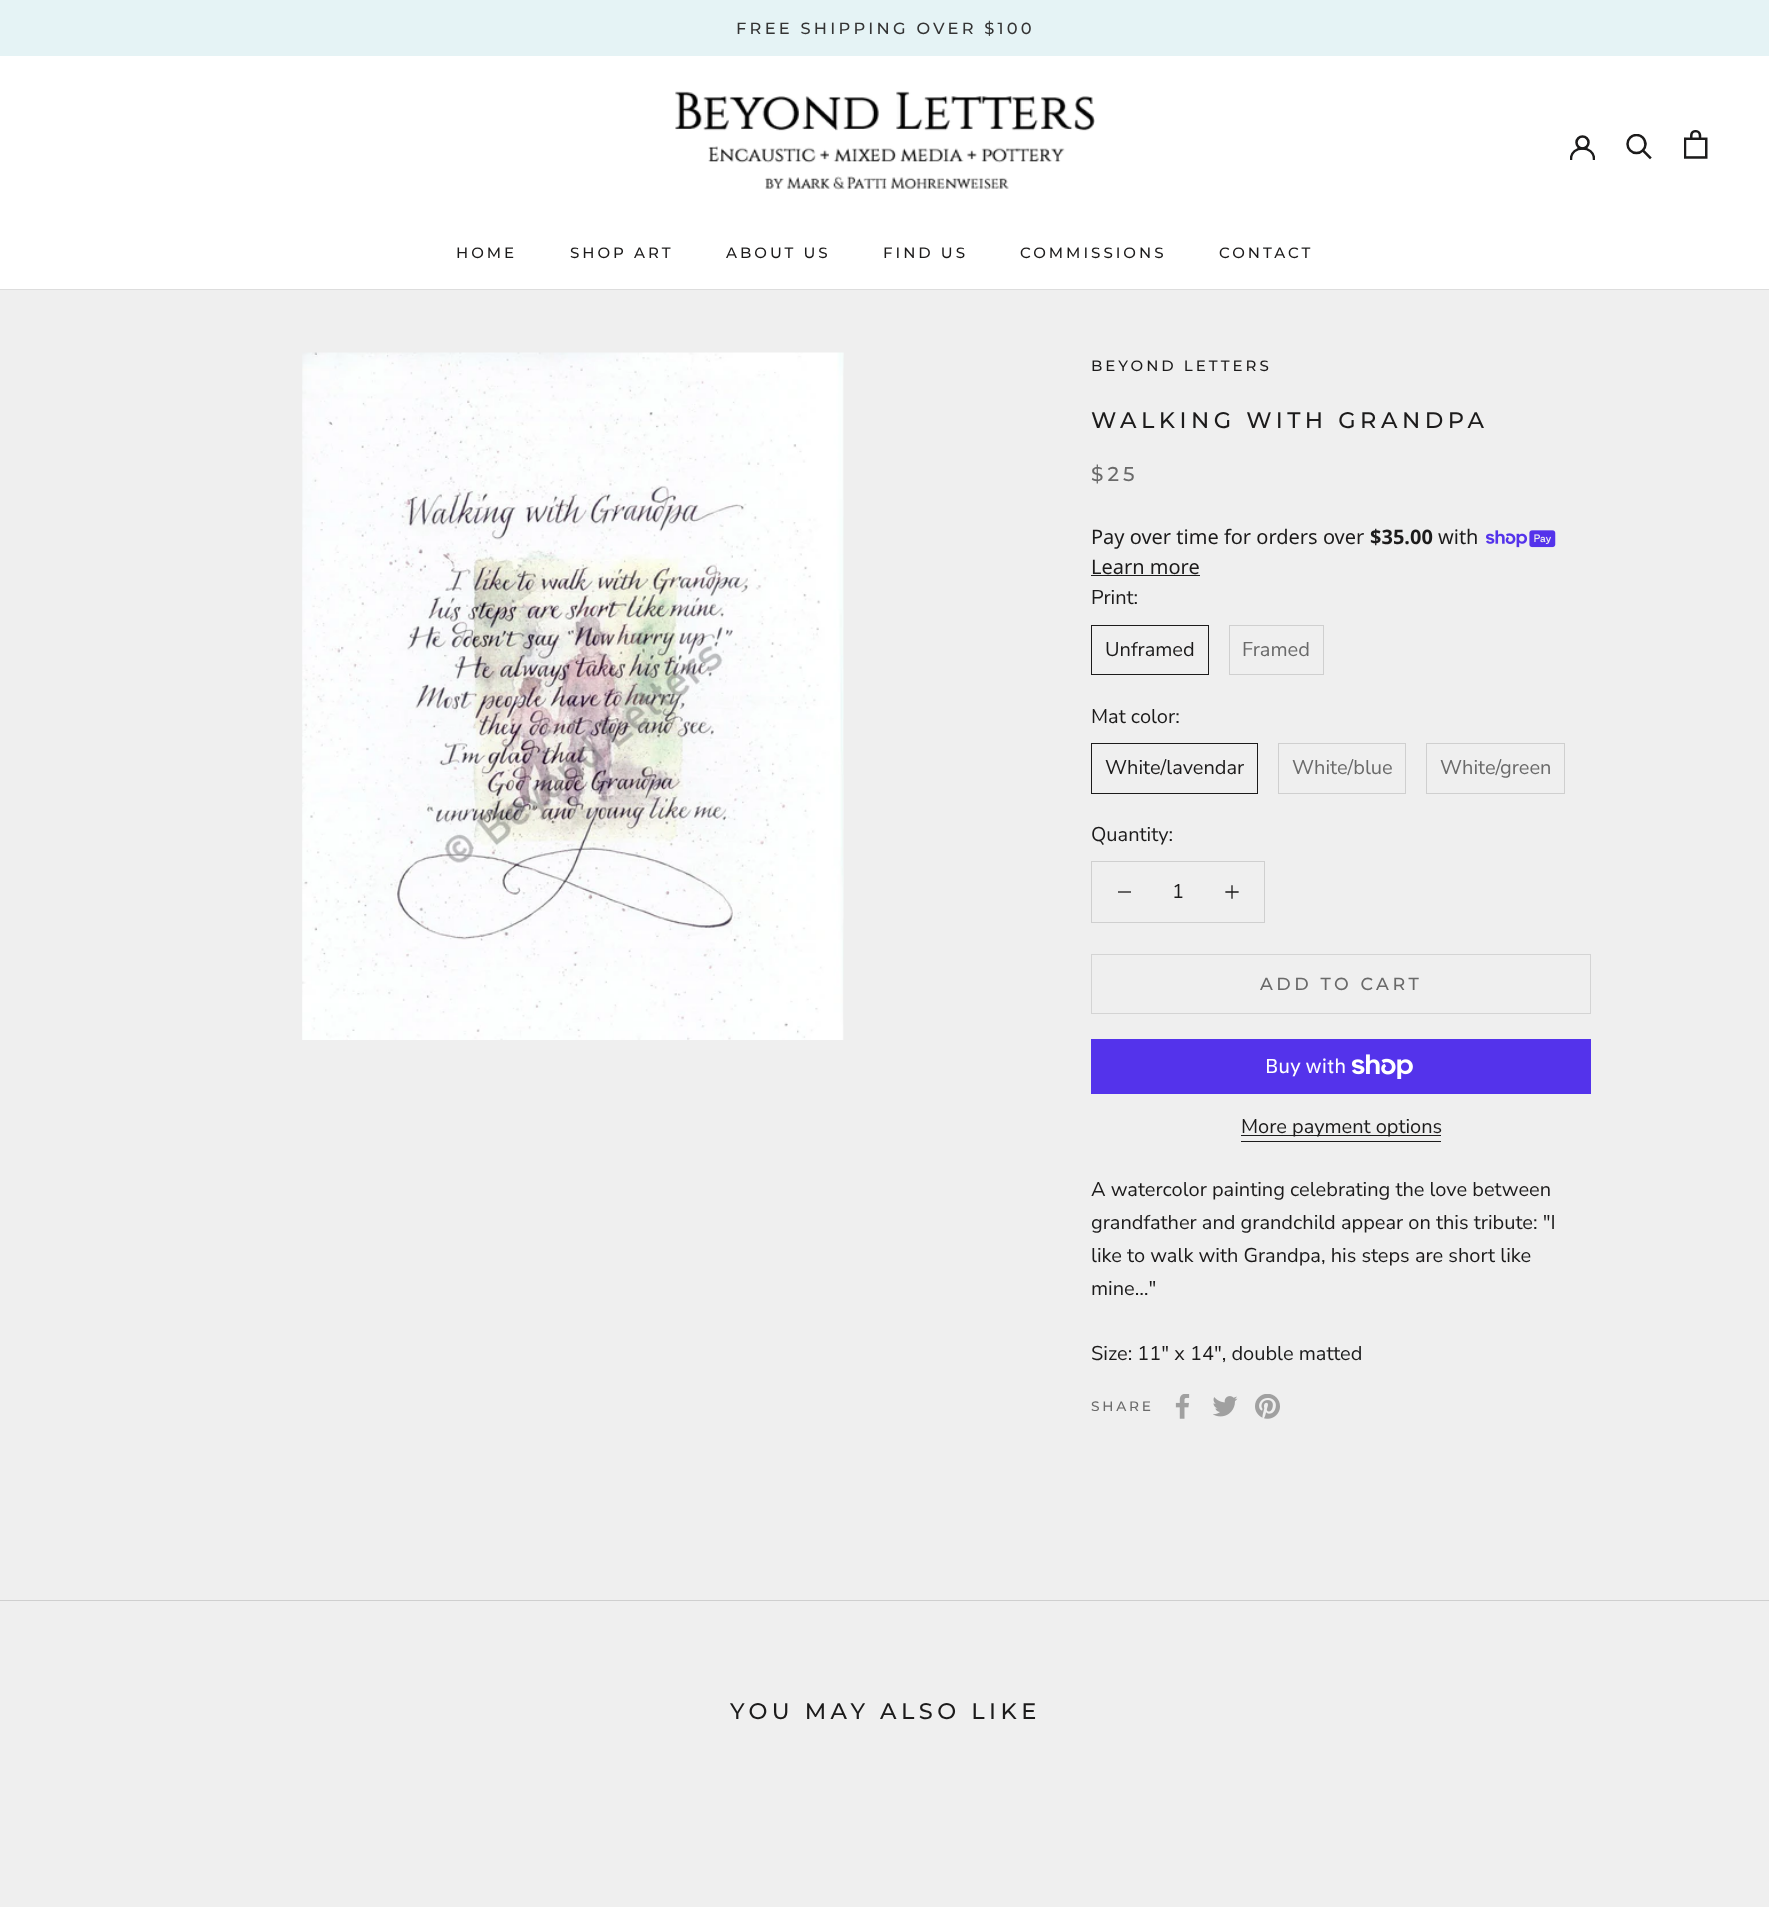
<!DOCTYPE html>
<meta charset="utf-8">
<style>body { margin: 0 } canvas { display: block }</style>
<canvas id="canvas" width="1769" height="1907"></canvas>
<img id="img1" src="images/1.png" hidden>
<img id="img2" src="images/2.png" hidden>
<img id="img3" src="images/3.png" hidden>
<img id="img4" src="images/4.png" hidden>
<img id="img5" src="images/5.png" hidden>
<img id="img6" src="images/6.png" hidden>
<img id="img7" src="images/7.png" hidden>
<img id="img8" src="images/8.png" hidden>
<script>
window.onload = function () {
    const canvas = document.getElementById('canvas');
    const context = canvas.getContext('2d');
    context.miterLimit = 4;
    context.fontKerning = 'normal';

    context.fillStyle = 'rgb(239, 239, 239)';
    context.fillRect(0, 0, 1769, 1907);
    context.fillStyle = 'rgb(229, 243, 245)';
    context.fillRect(0, 0, 1769, 56);
    context.fillStyle = 'rgb(255, 255, 255)';
    context.fillRect(0, 56, 1769, 233);
    context.fillStyle = 'rgb(221, 221, 221)';
    context.fillRect(0, 289, 1769, 1);
    context.drawImage(document.getElementById('img1'), 675, 91, 420, 99);
    context.save();
    context.beginPath();
    context.rect(1570, 135, 25, 25);
    context.clip();
    context.beginPath();
    context.moveTo(1571, 159);
    context.bezierCurveTo(1571, 145, 1594, 145, 1594, 159);
    context.strokeStyle = 'rgb(28, 27, 27)';
    context.lineWidth = 2.5;
    context.lineCap = 'square';
    context.stroke();
    context.restore();
    context.beginPath();
    context.arc(1582.5, 142.5, 6, 0, 2 * Math.PI);
    context.strokeStyle = 'rgb(28, 27, 27)';
    context.lineWidth = 2.5;
    context.stroke();
    context.beginPath();
    context.moveTo(1650, 157.5);
    context.lineTo(1643, 150.5);
    context.lineCap = 'square';
    context.stroke();
    context.save();
    context.beginPath();
    context.rect(1626, 134, 27, 26);
    context.clip();
    context.beginPath();
    context.arc(1636.5, 144, 9, 0, 2 * Math.PI);
    context.stroke();
    context.restore();
    context.drawImage(document.getElementById('img2'), 1684, 130, 24, 29);
    context.drawImage(document.getElementById('img3'), 302, 352, 542, 688);
    context.drawImage(document.getElementById('img4'), 1486, 530, 70, 18);
    context.fillStyle = 'rgb(28, 27, 27)';
    context.fillRect(1091, 575, 109, 1);
    context.lineWidth = 1;
    context.strokeRect(1091.5, 625.5, 117, 49);
    context.strokeStyle = 'rgb(207, 207, 207)';
    context.strokeRect(1229.5, 625.5, 94, 49);
    context.strokeStyle = 'rgb(28, 27, 27)';
    context.strokeRect(1091.5, 743.5, 166, 50);
    context.strokeStyle = 'rgb(207, 207, 207)';
    context.strokeRect(1278.5, 743.5, 127, 50);
    context.strokeRect(1426.5, 743.5, 138, 50);
    context.strokeRect(1091.5, 861.5, 173, 61);
    context.save();
    context.beginPath();
    context.rect(1118, 885, 13, 14);
    context.clip();
    context.beginPath();
    context.moveTo(1118.5, 892);
    context.lineTo(1130.5, 892);
    context.strokeStyle = 'rgb(28, 27, 27)';
    context.lineWidth = 1.3;
    context.stroke();
    context.restore();
    context.beginPath();
    context.moveTo(1232, 886);
    context.lineTo(1232, 898);
    context.moveTo(1226, 892);
    context.lineTo(1238, 892);
    context.strokeStyle = 'rgb(28, 27, 27)';
    context.lineWidth = 1.3;
    context.stroke();
    context.strokeStyle = 'rgb(212, 212, 212)';
    context.lineWidth = 1;
    context.strokeRect(1091.5, 954.5, 499, 59);
    context.fillStyle = 'rgb(84, 51, 235)';
    context.fillRect(1091, 1039, 500, 55);
    context.drawImage(document.getElementById('img5'), 1351, 1054, 62, 25);
    context.fillStyle = 'rgb(28, 27, 27)';
    context.fillRect(1241, 1135, 200, 1);
    context.fillRect(1241, 1141, 200, 1);
    context.drawImage(document.getElementById('img6'), 1175, 1394, 15, 25);
    context.drawImage(document.getElementById('img7'), 1213, 1396, 25, 21);
    context.drawImage(document.getElementById('img8'), 1255, 1394, 25, 25);
    context.fillStyle = 'rgb(207, 207, 207)';
    context.fillRect(0, 1600, 1769, 1);
    context.letterSpacing = '3.25px';
    context.font = '500 16.25px Montserrat';
    context.fillStyle = 'rgb(52, 52, 52)';
    context.fillText('FREE SHIPPING OVER $100', 736, 34);
    context.letterSpacing = '3px';
    context.font = '500 15px Montserrat';
    context.fillStyle = 'rgb(28, 27, 27)';
    context.fillText('HOME', 456, 258);
    context.fillText('SHOP ART', 570, 258);
    context.fillText('ABOUT US', 726, 258);
    context.fillText('FIND US', 883, 258);
    context.fillText('COMMISSIONS', 1020, 258);
    context.fillText('CONTACT', 1219, 258);
    context.fillText('BEYOND LETTERS', 1091, 371);
    context.letterSpacing = '4.5px';
    context.font = '500 22.5px Montserrat';
    context.fillText('WALKING WITH GRANDPA', 1091, 428);
    context.letterSpacing = '4px';
    context.font = '500 20px Montserrat';
    context.fillStyle = 'rgb(106, 106, 106)';
    context.fillText('$25', 1091, 481);
    context.letterSpacing = '0px';
    context.font = '20px Noto Sans';
    context.fillStyle = 'rgb(28, 27, 27)';
    context.fillText('Pay over time for orders over', 1091, 544);
    context.font = 'bold 20px Noto Sans';
    context.fillText('$35.00', 1370, 544);
    context.font = '20px Noto Sans';
    context.fillText('with', 1438, 544);
    context.fillText('Learn more', 1091, 574);
    context.font = '20px Nunito Sans';
    context.fillText('Print:', 1091, 604);
    context.fillText('Unframed', 1105, 656);
    context.fillStyle = 'rgb(106, 106, 106)';
    context.fillText('Framed', 1242, 656);
    context.fillStyle = 'rgb(28, 27, 27)';
    context.fillText('Mat color:', 1091, 723);
    context.fillText('White/lavendar', 1105, 774);
    context.fillStyle = 'rgb(106, 106, 106)';
    context.fillText('White/blue', 1292, 774);
    context.fillText('White/green', 1440, 774);
    context.fillStyle = 'rgb(28, 27, 27)';
    context.fillText('Quantity:', 1091, 841);
    context.fillText('1', 1172, 898);
    context.letterSpacing = '3.5px';
    context.font = '500 17.5px Montserrat';
    context.fillStyle = 'rgb(106, 106, 106)';
    context.fillText('ADD TO CART', 1260, 990);
    context.letterSpacing = '0px';
    context.font = '20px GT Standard';
    context.fillStyle = 'rgb(255, 255, 255)';
    context.fillText('Buy with', 1265, 1073);
    context.font = '20px Nunito Sans';
    context.fillStyle = 'rgb(28, 27, 27)';
    context.fillText('More payment options', 1241, 1133);
    context.fillText('A watercolor painting celebrating the love between', 1091, 1196);
    context.fillText('grandfather and grandchild appear on this tribute: "I', 1091, 1229);
    context.fillText('like to walk with Grandpa, his steps are short like', 1091, 1262);
    context.fillText('mine…"', 1091, 1295);
    context.fillText('Size: 11" x 14", double matted', 1091, 1360);
    context.letterSpacing = '2.75px';
    context.font = '500 13.75px Montserrat';
    context.fillStyle = 'rgb(106, 106, 106)';
    context.fillText('SHARE', 1091, 1411);
    context.letterSpacing = '4.5px';
    context.font = '500 22.5px Montserrat';
    context.fillStyle = 'rgb(28, 27, 27)';
    context.fillText('YOU MAY ALSO LIKE', 730, 1719);
};
</script>
